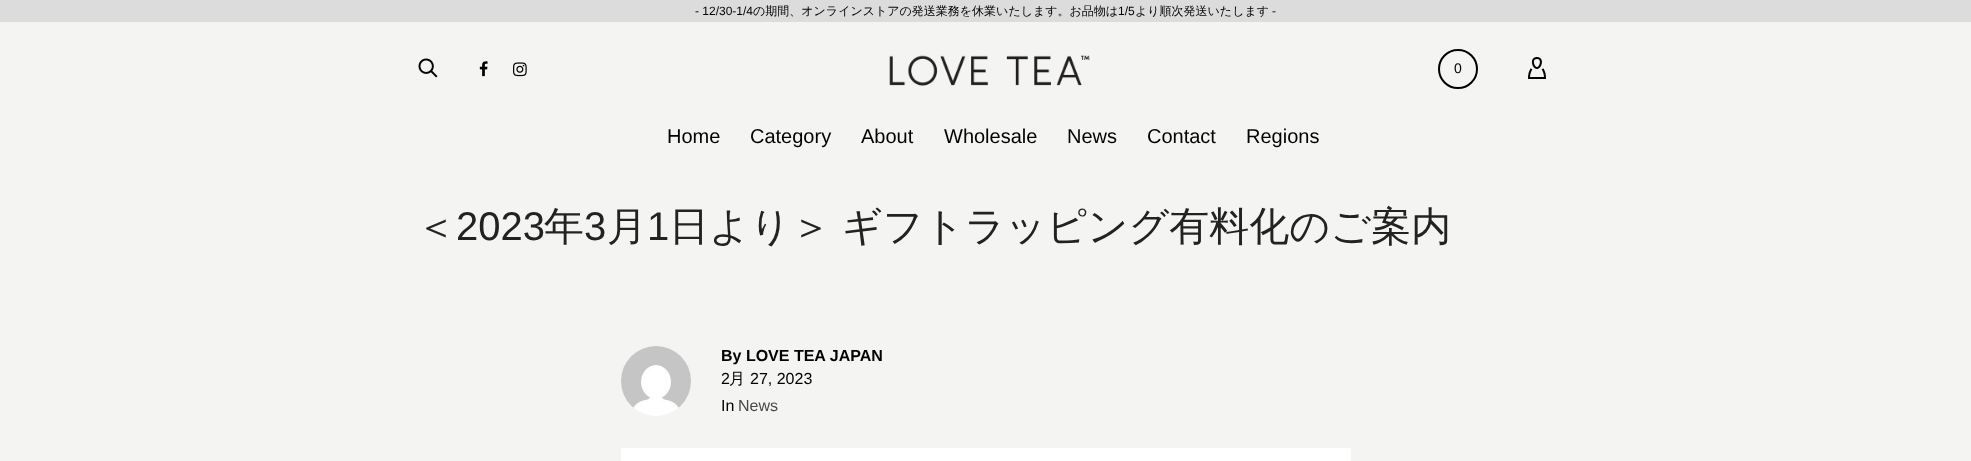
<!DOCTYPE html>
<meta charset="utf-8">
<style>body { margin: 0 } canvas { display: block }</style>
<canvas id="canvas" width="1971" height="461"></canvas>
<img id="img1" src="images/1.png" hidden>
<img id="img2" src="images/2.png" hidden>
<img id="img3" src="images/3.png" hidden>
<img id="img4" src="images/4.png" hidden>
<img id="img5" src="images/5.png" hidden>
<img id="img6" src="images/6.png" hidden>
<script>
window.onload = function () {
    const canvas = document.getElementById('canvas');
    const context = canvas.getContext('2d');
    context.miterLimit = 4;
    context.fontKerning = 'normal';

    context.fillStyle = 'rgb(244, 244, 242)';
    context.fillRect(0, 0, 1971, 461);
    context.fillStyle = 'rgb(220, 220, 220)';
    context.fillRect(0, 0, 1971, 22);
    context.drawImage(document.getElementById('img1'), 418, 58, 20, 20);
    context.drawImage(document.getElementById('img2'), 479, 61, 9, 16);
    context.drawImage(document.getElementById('img3'), 513, 62, 14, 15);
    context.drawImage(document.getElementById('img4'), 889, 55, 201, 31);
    context.beginPath();
    context.arc(1458, 69, 19, 0, 2 * Math.PI);
    context.strokeStyle = 'rgb(0, 0, 0)';
    context.lineWidth = 2;
    context.stroke();
    context.drawImage(document.getElementById('img5'), 1528, 57, 18, 22);
    context.drawImage(document.getElementById('img6'), 621, 346, 70, 70);
    context.fillStyle = 'rgb(255, 255, 255)';
    context.fillRect(621, 448, 730, 13);
    context.font = '12px Liberation Sans';
    context.fillStyle = 'rgb(2, 2, 2)';
    context.fillText('- 12/30-1/4', 695, 15);
    context.font = '500 12px WenQuanYi Zen Hei';
    context.fillText('の期間、オンラインストアの発送業務を休業いたします。お品物は', 753, 15);
    context.font = '12px Liberation Sans';
    context.fillText('1/5', 1118, 15);
    context.font = '500 12px WenQuanYi Zen Hei';
    context.fillText('より順次発送いたします', 1135, 15);
    context.font = '12px Liberation Sans';
    context.fillText('-', 1272, 15);
    context.font = '14px Liberation Sans';
    context.fillText('0', 1454, 73);
    context.font = '20px Liberation Sans';
    context.fillText('Home', 667, 143);
    context.fillText('Category', 750, 143);
    context.fillText('About', 861, 143);
    context.fillText('Wholesale', 944, 143);
    context.fillText('News', 1067, 143);
    context.fillText('Contact', 1147, 143);
    context.fillText('Regions', 1246, 143);
    context.font = '500 40px WenQuanYi Zen Hei';
    context.fillStyle = 'rgb(34, 34, 34)';
    context.fillText('＜', 416, 240);
    context.font = '40px Liberation Sans';
    context.fillText('2023', 456, 240);
    context.font = '500 40px WenQuanYi Zen Hei';
    context.fillText('年', 544, 240);
    context.font = '40px Liberation Sans';
    context.fillText('3', 584, 240);
    context.font = '500 40px WenQuanYi Zen Hei';
    context.fillText('月', 607, 240);
    context.font = '40px Liberation Sans';
    context.fillText('1', 647, 240);
    context.wordSpacing = '-1px';
    context.font = '500 40px WenQuanYi Zen Hei';
    context.fillText('日より＞ ギフトラッピング有料化のご案内', 669, 240);
    context.wordSpacing = '0px';
    context.font = 'bold 16px Liberation Sans';
    context.fillStyle = 'rgb(2, 2, 2)';
    context.fillText('By LOVE TEA JAPAN', 721, 361);
    context.font = '16px Liberation Sans';
    context.fillText('2', 721, 384);
    context.font = '500 16px WenQuanYi Zen Hei';
    context.fillText('月', 729, 384);
    context.font = '16px Liberation Sans';
    context.fillText('27, 2023', 750, 384);
    context.fillText('In', 721, 411);
    context.fillStyle = 'rgb(73, 73, 73)';
    context.fillText('News', 738, 411);
};
</script>
